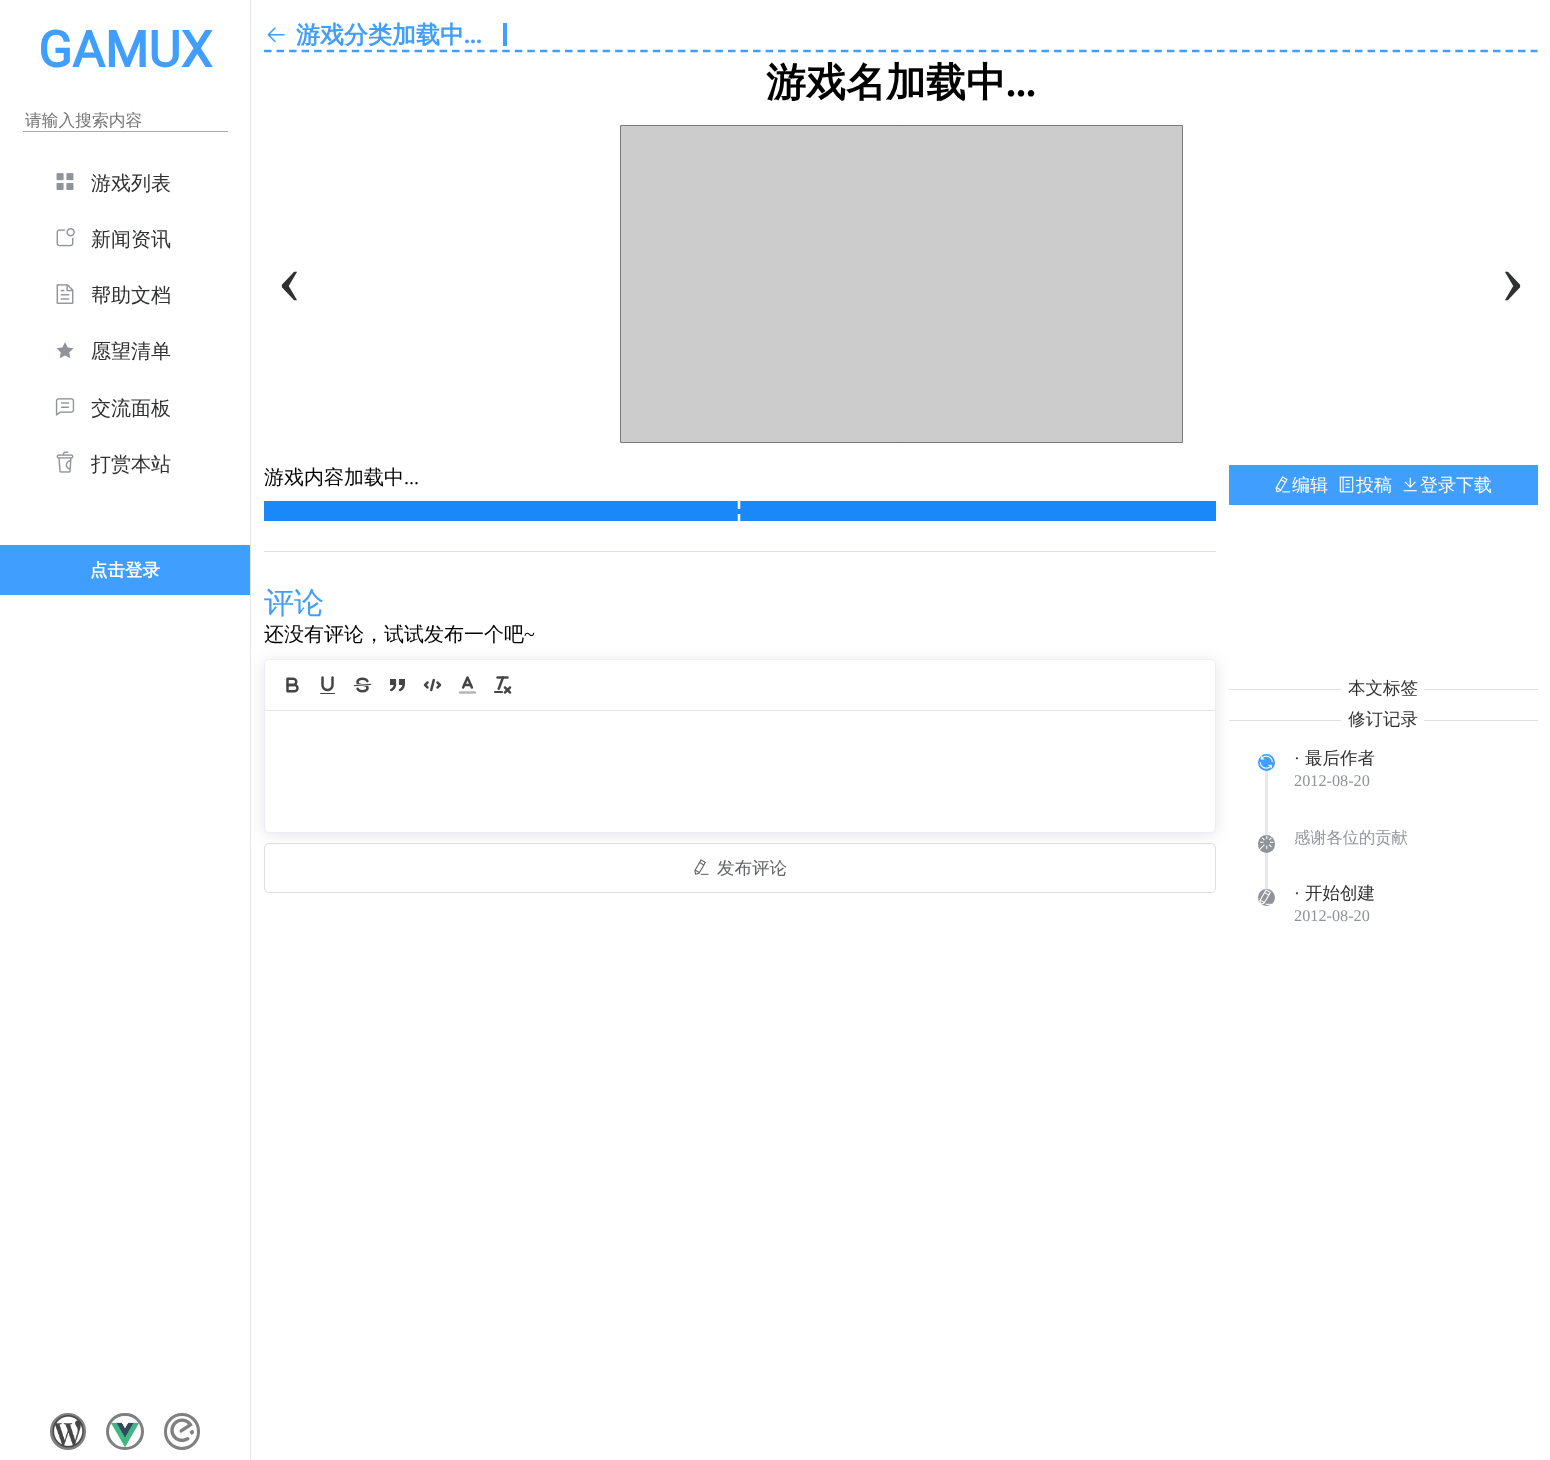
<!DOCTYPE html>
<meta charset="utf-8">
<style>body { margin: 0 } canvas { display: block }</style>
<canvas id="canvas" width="1550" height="1460"></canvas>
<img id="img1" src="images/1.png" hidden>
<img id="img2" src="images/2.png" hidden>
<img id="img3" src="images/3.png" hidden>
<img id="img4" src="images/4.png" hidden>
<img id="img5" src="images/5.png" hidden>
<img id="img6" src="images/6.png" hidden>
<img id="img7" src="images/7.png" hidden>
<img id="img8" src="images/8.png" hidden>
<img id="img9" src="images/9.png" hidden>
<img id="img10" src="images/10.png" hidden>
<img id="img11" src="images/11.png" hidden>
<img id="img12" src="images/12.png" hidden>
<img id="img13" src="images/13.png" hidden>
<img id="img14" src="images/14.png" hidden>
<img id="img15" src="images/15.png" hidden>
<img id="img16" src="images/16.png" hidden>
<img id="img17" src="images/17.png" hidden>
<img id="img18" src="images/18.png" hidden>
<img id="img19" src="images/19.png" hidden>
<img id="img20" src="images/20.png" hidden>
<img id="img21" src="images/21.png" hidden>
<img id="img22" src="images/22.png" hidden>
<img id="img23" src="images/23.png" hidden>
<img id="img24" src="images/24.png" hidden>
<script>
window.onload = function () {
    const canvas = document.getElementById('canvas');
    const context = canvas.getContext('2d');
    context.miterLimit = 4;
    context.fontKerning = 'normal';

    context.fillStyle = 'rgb(255, 255, 255)';
    context.fillRect(0, 0, 1550, 1460);
    context.fillStyle = 'rgb(230, 230, 230)';
    context.fillRect(250, 0, 1, 1460);
    context.fillStyle = 'rgb(169, 169, 169)';
    context.fillRect(23, 131, 205, 1);
    context.drawImage(document.getElementById('img1'), 56, 173, 18, 17);
    context.drawImage(document.getElementById('img2'), 56, 228, 19, 19);
    context.drawImage(document.getElementById('img3'), 56, 284, 18, 20);
    context.drawImage(document.getElementById('img4'), 56, 342, 18, 16);
    context.drawImage(document.getElementById('img5'), 55, 398, 20, 18);
    context.drawImage(document.getElementById('img6'), 56, 451, 18, 22);
    context.fillStyle = 'rgb(64, 158, 255)';
    context.fillRect(0, 545, 250, 50);
    context.beginPath();
    context.roundRect(51.5, 1414.5, 33, 34, 16.5);
    context.strokeStyle = 'rgb(128, 128, 128)';
    context.lineWidth = 3;
    context.stroke();
    context.drawImage(document.getElementById('img7'), 52, 1415, 32, 33);
    context.beginPath();
    context.roundRect(107.5, 1414.5, 35, 34, 17);
    context.stroke();
    context.drawImage(document.getElementById('img8'), 111, 1422, 28, 25);
    context.beginPath();
    context.roundRect(165.5, 1414.5, 33, 34, 16.5);
    context.stroke();
    context.drawImage(document.getElementById('img9'), 170, 1418, 24, 24);
    context.beginPath();
    context.moveTo(264, 51);
    context.lineTo(1537.5, 51);
    context.strokeStyle = 'rgb(64, 158, 255)';
    context.lineWidth = 2.5;
    context.setLineDash([7.5, 5.04]);
    context.stroke();
    context.drawImage(document.getElementById('img10'), 267, 27, 18, 16);
    context.fillRect(503, 23, 4, 23);
    context.fillStyle = 'rgb(204, 204, 204)';
    context.beginPath();
    context.roundRect(620, 125, 563, 318, 1);
    context.fill();
    context.beginPath();
    context.roundRect(620.5, 125.5, 562, 317, 0.5);
    context.strokeStyle = 'rgba(0, 0, 0, 0.4)';
    context.lineWidth = 1;
    context.setLineDash([]);
    context.stroke();
    context.fillStyle = 'rgb(25, 137, 250)';
    context.fillRect(264, 501, 952, 20);
    context.beginPath();
    context.moveTo(739, 501);
    context.lineTo(739, 509);
    context.moveTo(739, 514);
    context.lineTo(739, 521);
    context.strokeStyle = 'rgb(255, 255, 255)';
    context.lineWidth = 2.5;
    context.stroke();
    context.fillStyle = 'rgb(220, 223, 230)';
    context.fillRect(264, 551, 952, 1);
    context.fillStyle = 'rgba(0, 0, 0, 0.1)';
    context.filter = 'blur(7.5px)';
    context.beginPath();
    context.roundRect(264, 661, 952, 174, 5);
    context.fill();
    context.filter = 'none';
    context.fillStyle = 'rgb(255, 255, 255)';
    context.beginPath();
    context.roundRect(264.5, 659.5, 951, 173, 4.5);
    context.fill();
    context.strokeStyle = 'rgb(235, 238, 245)';
    context.lineWidth = 1;
    context.stroke();
    context.fillStyle = 'rgb(230, 230, 230)';
    context.fillRect(265, 710, 950, 1);
    context.drawImage(document.getElementById('img11'), 286, 677, 13, 16);
    context.drawImage(document.getElementById('img12'), 320, 676, 15, 18);
    context.drawImage(document.getElementById('img13'), 353, 677, 19, 16);
    context.drawImage(document.getElementById('img14'), 390, 679, 15, 13);
    context.drawImage(document.getElementById('img15'), 423, 678, 19, 14);
    context.drawImage(document.getElementById('img16'), 458, 676, 19, 18);
    context.drawImage(document.getElementById('img17'), 494, 676, 18, 18);
    context.fillStyle = 'rgb(255, 255, 255)';
    context.beginPath();
    context.roundRect(264.5, 843.5, 951, 49, 4.5);
    context.fill();
    context.strokeStyle = 'rgb(220, 223, 230)';
    context.stroke();
    context.drawImage(document.getElementById('img18'), 694, 859, 15, 16);
    context.fillStyle = 'rgb(64, 158, 255)';
    context.fillRect(1229, 465, 309, 40);
    context.drawImage(document.getElementById('img19'), 1275, 476, 16, 17);
    context.drawImage(document.getElementById('img20'), 1339, 476, 15, 17);
    context.drawImage(document.getElementById('img21'), 1403, 477, 14, 15);
    context.fillStyle = 'rgb(220, 223, 230)';
    context.fillRect(1229, 689, 309, 1);
    context.fillStyle = 'rgb(255, 255, 255)';
    context.fillRect(1341, 689, 83, 1);
    context.fillStyle = 'rgb(220, 223, 230)';
    context.fillRect(1229, 720, 309, 1);
    context.fillStyle = 'rgb(255, 255, 255)';
    context.fillRect(1341, 720, 83, 1);
    context.fillStyle = 'rgb(228, 231, 237)';
    context.fillRect(1265, 770, 3, 65);
    context.fillStyle = 'rgb(64, 158, 255)';
    context.beginPath();
    context.arc(1266.5, 762.5, 8.5, 0, 2 * Math.PI);
    context.fill();
    context.drawImage(document.getElementById('img22'), 1259, 755, 14, 14);
    context.fillStyle = 'rgb(228, 231, 237)';
    context.fillRect(1265, 852, 3, 39);
    context.fillStyle = 'rgb(144, 147, 153)';
    context.beginPath();
    context.roundRect(1258, 835, 17, 18, 8.5);
    context.fill();
    context.drawImage(document.getElementById('img23'), 1259, 835, 15, 15);
    context.beginPath();
    context.arc(1266.5, 897.5, 8.5, 0, 2 * Math.PI);
    context.fill();
    context.drawImage(document.getElementById('img24'), 1259, 889, 14, 16);
    context.font = 'bold 50px Roboto';
    context.fillStyle = 'rgb(64, 158, 255)';
    context.fillText('GAMUX', 38, 67);
    context.font = '500 16.75px WenQuanYi Zen Hei';
    context.fillStyle = 'rgb(117, 117, 117)';
    context.fillText('请输入搜索内容', 25, 126);
    context.font = '500 20px WenQuanYi Zen Hei';
    context.fillStyle = 'rgb(48, 49, 51)';
    context.fillText('游戏列表', 91, 190);
    context.fillText('新闻资讯', 91, 246);
    context.fillText('帮助文档', 91, 302);
    context.fillText('愿望清单', 91, 358);
    context.fillText('交流面板', 91, 415);
    context.fillText('打赏本站', 91, 471);
    context.font = 'bold 17.5px WenQuanYi Zen Hei';
    context.fillStyle = 'rgb(255, 255, 255)';
    context.fillText('点击登录', 90, 576);
    context.font = 'bold 24px WenQuanYi Zen Hei';
    context.fillStyle = 'rgb(64, 158, 255)';
    context.fillText('游戏分类加载中', 296, 43);
    context.font = 'bold 24px Liberation Serif';
    context.fillText('...', 464, 43);
    context.font = 'bold 40px WenQuanYi Zen Hei';
    context.fillStyle = 'rgb(0, 0, 0)';
    context.fillText('游戏名加载中', 766, 96);
    context.font = 'bold 40px Liberation Serif';
    context.fillText('...', 1006, 96);
    context.font = '75px Liberation Serif';
    context.fillStyle = 'rgb(48, 49, 51)';
    context.fillText('‹', 277, 303);
    context.fillText('›', 1500, 303);
    context.font = '500 20px WenQuanYi Zen Hei';
    context.fillStyle = 'rgb(0, 0, 0)';
    context.fillText('游戏内容加载中', 264, 484);
    context.font = '20px Liberation Serif';
    context.fillText('...', 404, 484);
    context.font = '500 30px WenQuanYi Zen Hei';
    context.fillStyle = 'rgb(64, 158, 255)';
    context.fillText('评论', 264, 613);
    context.font = '500 20px WenQuanYi Zen Hei';
    context.fillStyle = 'rgb(0, 0, 0)';
    context.fillText('还没有评论，试试发布一个吧', 264, 641);
    context.font = '20px Liberation Serif';
    context.fillText('~', 524, 641);
    context.font = '500 17.5px WenQuanYi Zen Hei';
    context.fillStyle = 'rgb(96, 98, 102)';
    context.fillText('发布评论', 717, 874);
    context.font = '500 18px WenQuanYi Zen Hei';
    context.fillStyle = 'rgb(255, 255, 255)';
    context.fillText('编辑', 1292, 491);
    context.fillText('投稿', 1356, 491);
    context.fillText('登录下载', 1420, 491);
    context.font = '500 17.5px WenQuanYi Zen Hei';
    context.fillStyle = 'rgb(48, 49, 51)';
    context.fillText('本文标签', 1348, 694);
    context.fillText('修订记录', 1348, 725);
    context.font = '17.5px Liberation Serif';
    context.fillText('·', 1294, 764);
    context.font = '500 17.5px WenQuanYi Zen Hei';
    context.fillText('最后作者', 1305, 764);
    context.font = '16.25px Liberation Serif';
    context.fillStyle = 'rgb(144, 147, 153)';
    context.fillText('2012-08-20', 1294, 786);
    context.font = '500 16.25px WenQuanYi Zen Hei';
    context.fillText('感谢各位的贡献', 1294, 843);
    context.font = '17.5px Liberation Serif';
    context.fillStyle = 'rgb(48, 49, 51)';
    context.fillText('·', 1294, 899);
    context.font = '500 17.5px WenQuanYi Zen Hei';
    context.fillText('开始创建', 1305, 899);
    context.font = '16.25px Liberation Serif';
    context.fillStyle = 'rgb(144, 147, 153)';
    context.fillText('2012-08-20', 1294, 921);
};
</script>
